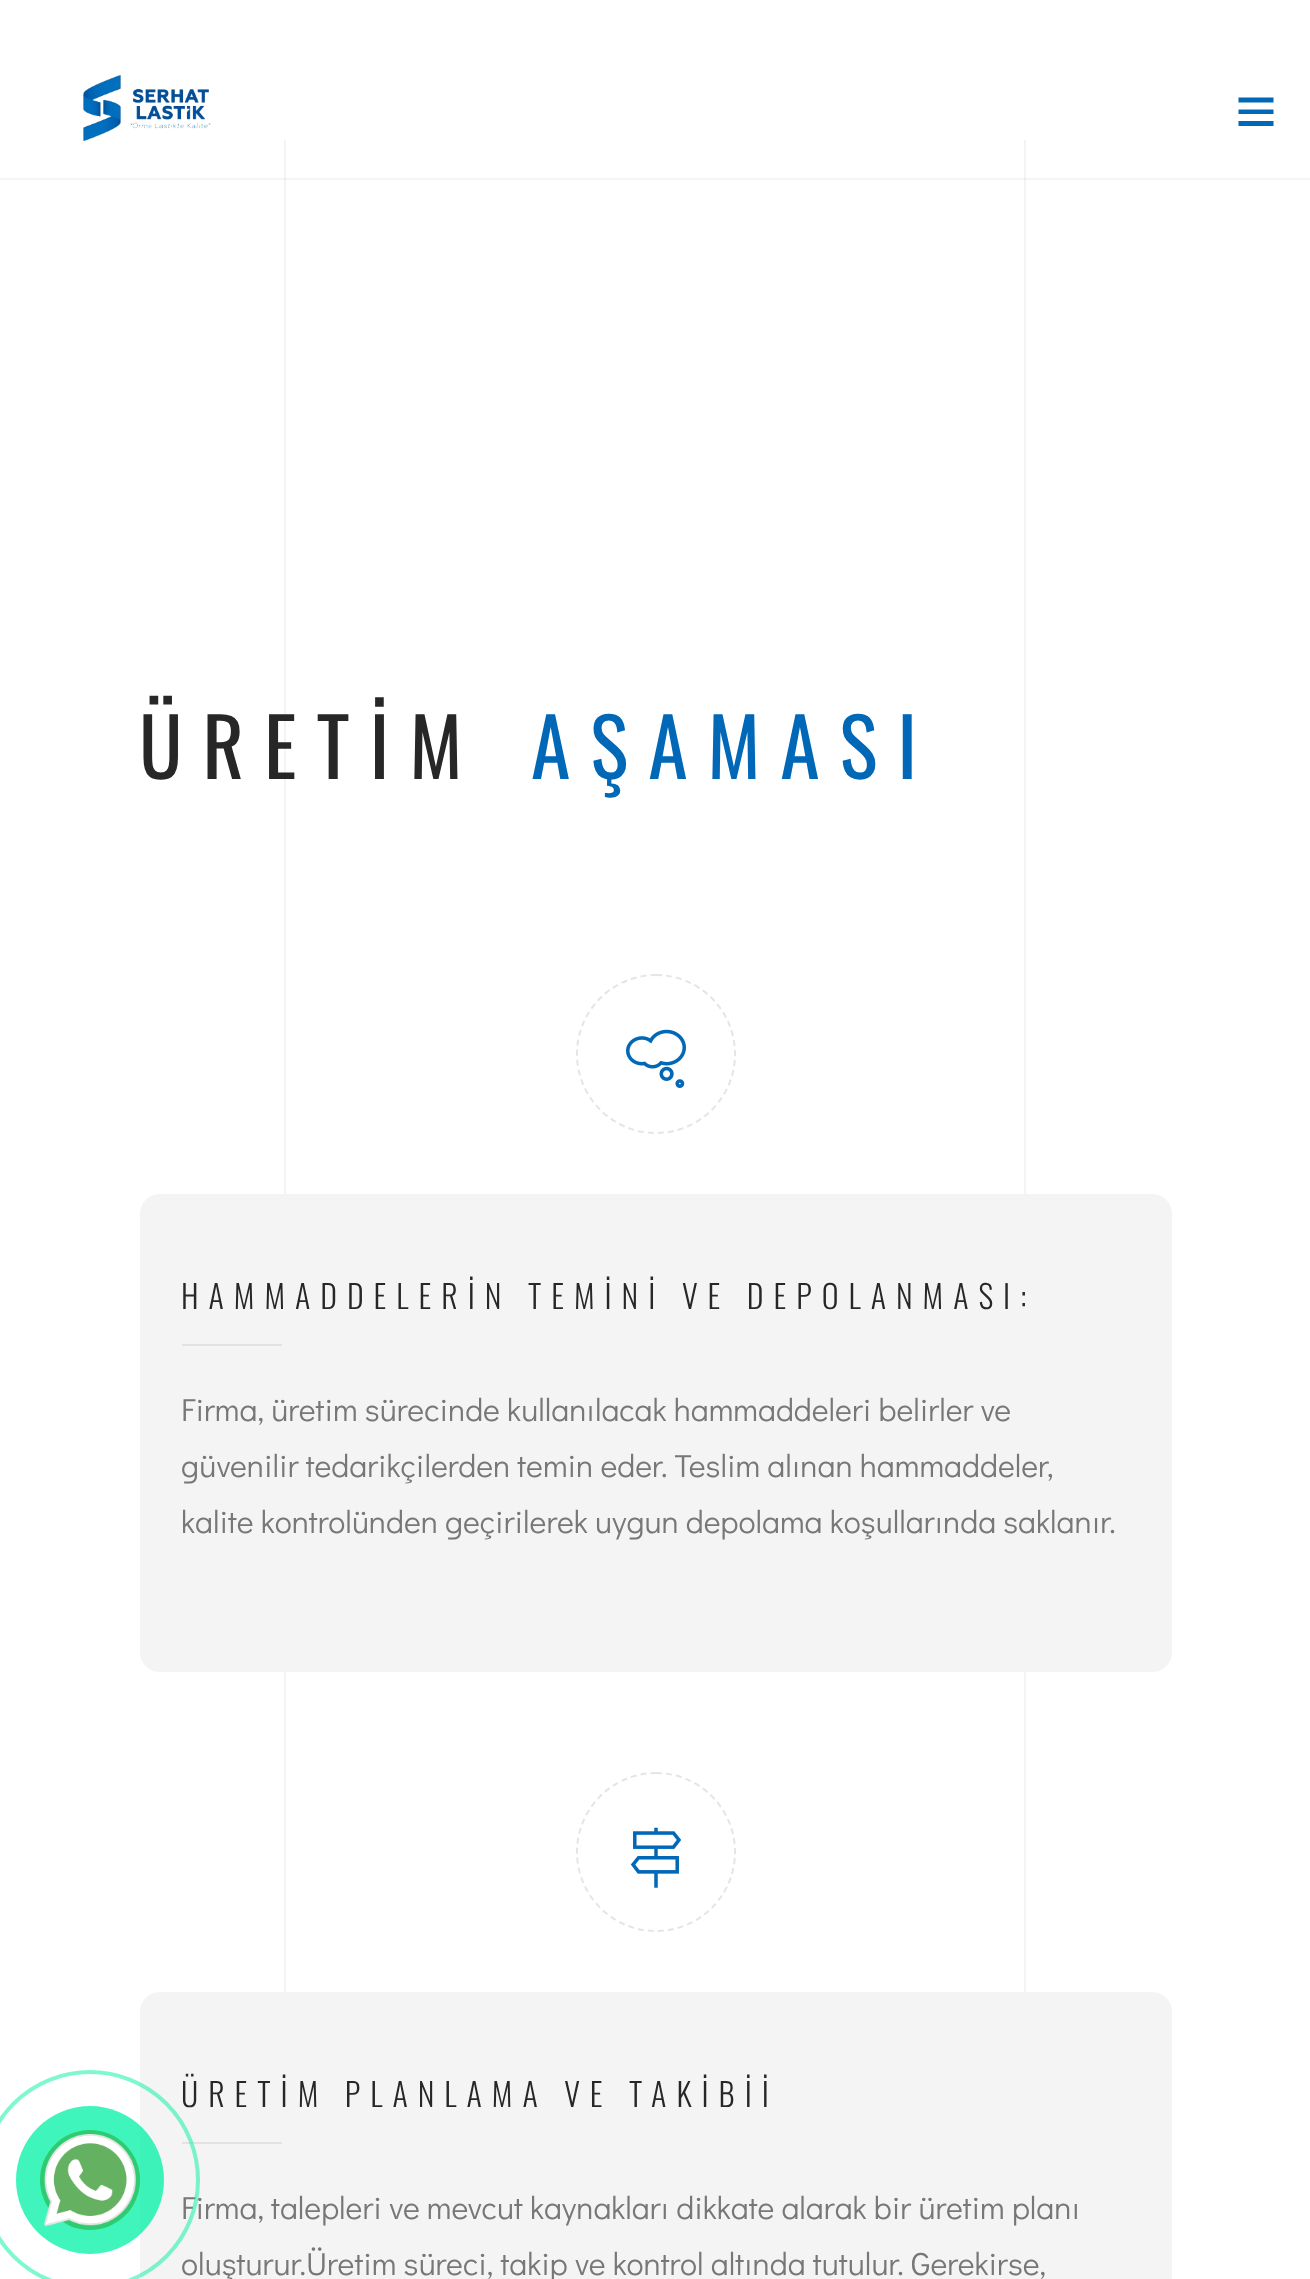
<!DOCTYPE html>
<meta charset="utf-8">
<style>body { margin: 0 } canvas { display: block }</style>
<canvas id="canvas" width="1310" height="2279"></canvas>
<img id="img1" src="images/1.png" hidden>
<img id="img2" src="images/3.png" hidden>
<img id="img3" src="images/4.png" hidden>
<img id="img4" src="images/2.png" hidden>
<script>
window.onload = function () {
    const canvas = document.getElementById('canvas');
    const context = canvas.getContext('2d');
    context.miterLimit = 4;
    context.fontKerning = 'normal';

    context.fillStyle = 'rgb(255, 255, 255)';
    context.fillRect(0, 0, 1310, 2279);
    context.fillStyle = 'rgb(245, 245, 245)';
    context.fillRect(0, 178, 1310, 2);
    context.drawImage(document.getElementById('img1'), 83, 75, 128, 66);
    context.fillStyle = 'rgb(1, 104, 184)';
    context.beginPath();
    context.moveTo(1273.5, 97.5);
    context.lineTo(1273.5, 102.5);
    context.lineTo(1238.5, 102.5);
    context.lineTo(1238.5, 97.5);
    context.closePath();
    context.moveTo(1238.5, 114);
    context.lineTo(1273.5, 114);
    context.lineTo(1273.5, 109.5);
    context.lineTo(1238.5, 109.5);
    context.closePath();
    context.moveTo(1238.5, 126);
    context.lineTo(1273.5, 126);
    context.lineTo(1273.5, 121);
    context.lineTo(1238.5, 121);
    context.closePath();
    context.fill();
    context.fillStyle = 'rgb(244, 244, 244)';
    context.fillRect(1024, 140, 2, 1852);
    context.fillStyle = 'rgb(234, 234, 234)';
    context.fillRect(1024, 178, 2, 2);
    context.fillStyle = 'rgb(244, 244, 244)';
    context.fillRect(284, 140, 2, 1852);
    context.fillStyle = 'rgb(234, 234, 234)';
    context.fillRect(284, 178, 2, 2);
    context.beginPath();
    context.moveTo(656, 975);
    context.bezierCurveTo(699.5, 975, 735, 1010.5, 735, 1054);
    context.bezierCurveTo(735, 1097.5, 699.5, 1133, 656, 1133);
    context.bezierCurveTo(612.5, 1133, 577, 1097.5, 577, 1054);
    context.bezierCurveTo(577, 1010.5, 612.5, 975, 656, 975);
    context.closePath();
    context.strokeStyle = 'rgb(232, 228, 228)';
    context.lineWidth = 2;
    context.setLineDash([6, 4]);
    context.stroke();
    context.drawImage(document.getElementById('img2'), 626, 1029, 60, 59);
    context.fillStyle = 'rgb(244, 244, 244)';
    context.beginPath();
    context.roundRect(141, 1195, 1030, 476, 19);
    context.fill();
    context.strokeStyle = 'rgb(244, 244, 244)';
    context.setLineDash([]);
    context.stroke();
    context.fillStyle = 'rgb(226, 226, 226)';
    context.fillRect(182, 1344, 100, 2);
    context.beginPath();
    context.moveTo(656, 1773);
    context.bezierCurveTo(699.5, 1773, 735, 1808.5, 735, 1852);
    context.bezierCurveTo(735, 1895.5, 699.5, 1931, 656, 1931);
    context.bezierCurveTo(612.5, 1931, 577, 1895.5, 577, 1852);
    context.bezierCurveTo(577, 1808.5, 612.5, 1773, 656, 1773);
    context.closePath();
    context.strokeStyle = 'rgb(232, 228, 228)';
    context.setLineDash([6, 4]);
    context.stroke();
    context.drawImage(document.getElementById('img3'), 630, 1827, 52, 61);
    context.fillStyle = 'rgb(244, 244, 244)';
    context.beginPath();
    context.roundRect(141, 1993, 1030, 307, 19);
    context.fill();
    context.strokeStyle = 'rgb(244, 244, 244)';
    context.setLineDash([]);
    context.stroke();
    context.fillStyle = 'rgb(226, 226, 226)';
    context.fillRect(182, 2142, 100, 2);
    context.letterSpacing = '20px';
    context.font = '80px Oswald';
    context.fillStyle = 'rgb(39, 39, 39)';
    context.fillText('ÜRETİM', 139, 779);
    context.fillStyle = 'rgb(1, 104, 184)';
    context.fillText('AŞAMASI', 531, 779);
    context.letterSpacing = '10px';
    context.font = '300 32px Oswald';
    context.fillStyle = 'rgb(39, 39, 39)';
    context.fillText('HAMMADDELERİN TEMİNİ VE DEPOLANMASI:', 181, 1309);
    context.letterSpacing = '0px';
    context.font = '32px Didact Gothic';
    context.fillStyle = 'rgb(119, 119, 119)';
    context.fillText('Firma, üretim sürecinde kullanılacak hammaddeleri belirler ve', 181, 1421);
    context.fillText('güvenilir tedarikçilerden temin eder. Teslim alınan hammaddeler,', 181, 1477);
    context.fillText('kalite kontrolünden geçirilerek uygun depolama koşullarında saklanır.', 181, 1533);
    context.letterSpacing = '10px';
    context.font = '300 32px Oswald';
    context.fillStyle = 'rgb(39, 39, 39)';
    context.fillText('ÜRETİM PLANLAMA VE TAKİBİİ', 181, 2107);
    context.letterSpacing = '0px';
    context.font = '32px Didact Gothic';
    context.fillStyle = 'rgb(119, 119, 119)';
    context.fillText('Firma, talepleri ve mevcut kaynakları dikkate alarak bir üretim planı', 181, 2219);
    context.fillText('oluşturur.Üretim süreci, takip ve kontrol altında tutulur. Gerekirse,', 181, 2275);
    context.beginPath();
    context.arc(90, 2180, 108, 0, 2 * Math.PI);
    context.strokeStyle = 'rgba(0, 242, 164, 0.5)';
    context.lineWidth = 4;
    context.stroke();
    context.fillStyle = 'rgba(0, 242, 164, 0.75)';
    context.beginPath();
    context.arc(90, 2180, 74, 0, 2 * Math.PI);
    context.fill();
    context.fillStyle = 'rgb(46, 203, 113)';
    context.beginPath();
    context.arc(90, 2180, 50, 0, 2 * Math.PI);
    context.fill();
    context.drawImage(document.getElementById('img4'), 44, 2134, 92, 92);
};
</script>
